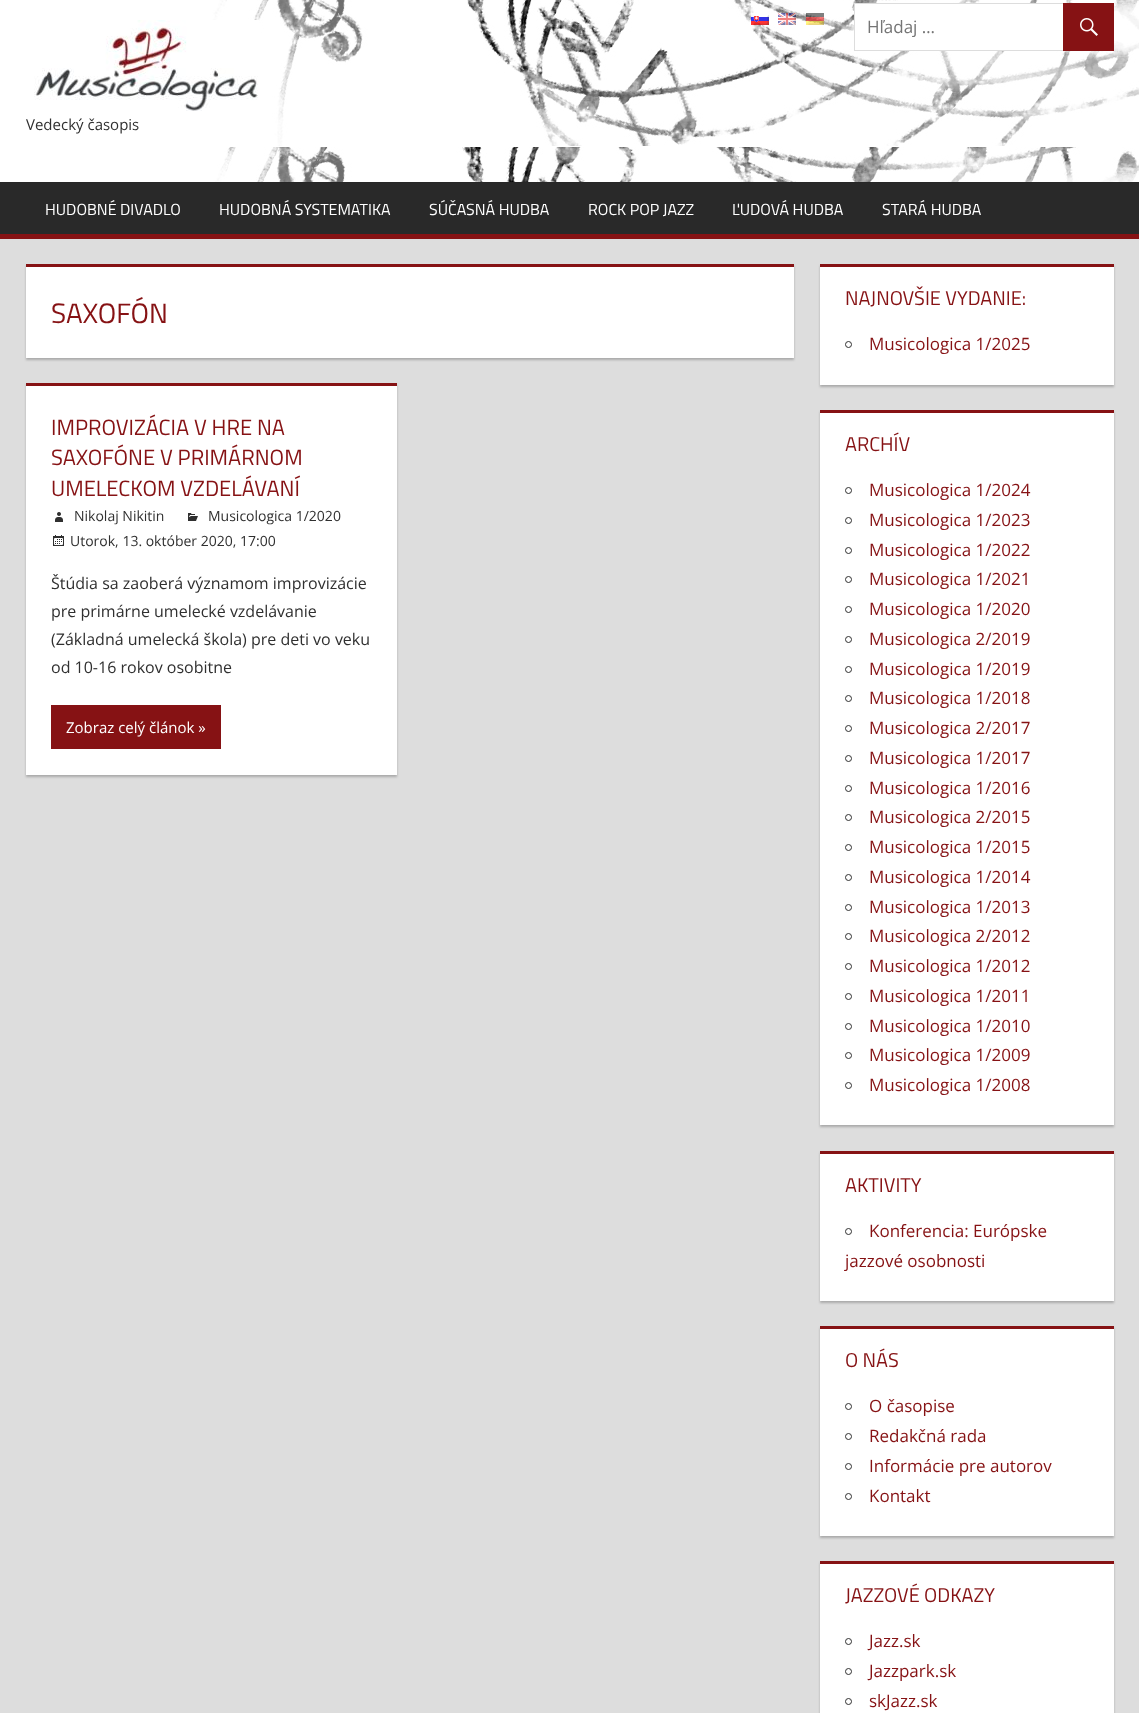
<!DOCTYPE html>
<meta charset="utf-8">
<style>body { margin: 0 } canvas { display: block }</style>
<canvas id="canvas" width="1139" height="1713"></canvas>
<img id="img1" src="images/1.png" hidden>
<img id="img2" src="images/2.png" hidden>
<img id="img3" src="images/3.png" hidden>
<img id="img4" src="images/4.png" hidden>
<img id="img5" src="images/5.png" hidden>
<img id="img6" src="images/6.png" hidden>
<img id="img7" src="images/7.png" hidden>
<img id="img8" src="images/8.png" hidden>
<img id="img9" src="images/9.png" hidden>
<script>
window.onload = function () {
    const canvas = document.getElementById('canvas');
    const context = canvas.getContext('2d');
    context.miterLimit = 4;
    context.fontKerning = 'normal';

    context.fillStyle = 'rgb(221, 221, 221)';
    context.fillRect(0, 0, 1139, 1713);
    context.fillStyle = 'rgb(255, 255, 255)';
    context.fillRect(0, 0, 212, 182);
    context.drawImage(document.getElementById('img1'), 212, 0, 927, 182);
    context.drawImage(document.getElementById('img2'), 751, 13, 18, 12);
    context.drawImage(document.getElementById('img3'), 778, 13, 18, 12);
    context.drawImage(document.getElementById('img4'), 806, 13, 18, 12);
    context.fillRect(855, 4, 208, 46);
    context.strokeStyle = 'rgb(221, 221, 221)';
    context.strokeRect(854.5, 3.5, 259, 47);
    context.fillStyle = 'rgb(134, 18, 20)';
    context.fillRect(1063, 3, 51, 48);
    context.drawImage(document.getElementById('img5'), 1080, 18, 18, 18);
    context.drawImage(document.getElementById('img6'), 34, 20, 225, 91);
    context.fillStyle = 'rgb(41, 41, 41)';
    context.fillRect(0, 183, 1139, 51);
    context.fillStyle = 'rgb(39, 39, 39)';
    context.fillRect(0, 182, 1139, 1);
    context.fillStyle = 'rgb(134, 18, 20)';
    context.fillRect(0, 234, 1139, 5);
    context.fillStyle = 'rgb(170, 170, 170)';
    context.filter = 'blur(1px)';
    context.beginPath();
    context.rect(26, 266, 768, 94);
    context.fill();
    context.filter = 'none';
    context.fillStyle = 'rgb(255, 255, 255)';
    context.fillRect(26, 267, 768, 91);
    context.fillStyle = 'rgb(134, 18, 20)';
    context.fillRect(26, 264, 768, 3);
    context.fillStyle = 'rgb(170, 170, 170)';
    context.filter = 'blur(1px)';
    context.beginPath();
    context.rect(26, 385, 371, 392);
    context.fill();
    context.filter = 'none';
    context.fillStyle = 'rgb(255, 255, 255)';
    context.fillRect(26, 386, 371, 389);
    context.fillStyle = 'rgb(134, 18, 20)';
    context.fillRect(26, 383, 371, 3);
    context.drawImage(document.getElementById('img7'), 55, 512, 8, 10);
    context.drawImage(document.getElementById('img8'), 188, 513, 10, 8);
    context.drawImage(document.getElementById('img9'), 53, 535, 11, 11);
    context.fillRect(51, 705, 170, 44);
    context.fillStyle = 'rgb(170, 170, 170)';
    context.filter = 'blur(1px)';
    context.beginPath();
    context.rect(820, 266, 294, 121);
    context.fill();
    context.filter = 'none';
    context.fillStyle = 'rgb(255, 255, 255)';
    context.fillRect(820, 267, 294, 118);
    context.fillStyle = 'rgb(134, 18, 20)';
    context.fillRect(820, 264, 294, 3);
    context.beginPath();
    context.arc(848.5, 344.5, 3, 0, 2 * Math.PI);
    context.strokeStyle = 'rgb(48, 48, 48)';
    context.stroke();
    context.fillStyle = 'rgb(170, 170, 170)';
    context.filter = 'blur(1px)';
    context.beginPath();
    context.rect(820, 412, 294, 715);
    context.fill();
    context.filter = 'none';
    context.fillStyle = 'rgb(255, 255, 255)';
    context.fillRect(820, 413, 294, 712);
    context.fillStyle = 'rgb(134, 18, 20)';
    context.fillRect(820, 410, 294, 3);
    context.beginPath();
    context.arc(848.5, 490.5, 3, 0, 2 * Math.PI);
    context.stroke();
    context.beginPath();
    context.arc(848.5, 520.5, 3, 0, 2 * Math.PI);
    context.stroke();
    context.beginPath();
    context.arc(848.5, 550.5, 3, 0, 2 * Math.PI);
    context.stroke();
    context.beginPath();
    context.arc(848.5, 579.5, 3, 0, 2 * Math.PI);
    context.stroke();
    context.beginPath();
    context.arc(848.5, 609.5, 3, 0, 2 * Math.PI);
    context.stroke();
    context.beginPath();
    context.arc(848.5, 639.5, 3, 0, 2 * Math.PI);
    context.stroke();
    context.beginPath();
    context.arc(848.5, 669.5, 3, 0, 2 * Math.PI);
    context.stroke();
    context.beginPath();
    context.arc(848.5, 698.5, 3, 0, 2 * Math.PI);
    context.stroke();
    context.beginPath();
    context.arc(848.5, 728.5, 3, 0, 2 * Math.PI);
    context.stroke();
    context.beginPath();
    context.arc(848.5, 758.5, 3, 0, 2 * Math.PI);
    context.stroke();
    context.beginPath();
    context.arc(848.5, 788.5, 3, 0, 2 * Math.PI);
    context.stroke();
    context.beginPath();
    context.arc(848.5, 817.5, 3, 0, 2 * Math.PI);
    context.stroke();
    context.beginPath();
    context.arc(848.5, 847.5, 3, 0, 2 * Math.PI);
    context.stroke();
    context.beginPath();
    context.arc(848.5, 877.5, 3, 0, 2 * Math.PI);
    context.stroke();
    context.beginPath();
    context.arc(848.5, 907.5, 3, 0, 2 * Math.PI);
    context.stroke();
    context.beginPath();
    context.arc(848.5, 936.5, 3, 0, 2 * Math.PI);
    context.stroke();
    context.beginPath();
    context.arc(848.5, 966.5, 3, 0, 2 * Math.PI);
    context.stroke();
    context.beginPath();
    context.arc(848.5, 996.5, 3, 0, 2 * Math.PI);
    context.stroke();
    context.beginPath();
    context.arc(848.5, 1026.5, 3, 0, 2 * Math.PI);
    context.stroke();
    context.beginPath();
    context.arc(848.5, 1055.5, 3, 0, 2 * Math.PI);
    context.stroke();
    context.beginPath();
    context.arc(848.5, 1085.5, 3, 0, 2 * Math.PI);
    context.stroke();
    context.fillStyle = 'rgb(170, 170, 170)';
    context.filter = 'blur(1px)';
    context.beginPath();
    context.rect(820, 1153, 294, 150);
    context.fill();
    context.filter = 'none';
    context.fillStyle = 'rgb(255, 255, 255)';
    context.fillRect(820, 1154, 294, 147);
    context.fillStyle = 'rgb(134, 18, 20)';
    context.fillRect(820, 1151, 294, 3);
    context.beginPath();
    context.arc(848.5, 1231.5, 3, 0, 2 * Math.PI);
    context.stroke();
    context.fillStyle = 'rgb(170, 170, 170)';
    context.filter = 'blur(1px)';
    context.beginPath();
    context.rect(820, 1328, 294, 210);
    context.fill();
    context.filter = 'none';
    context.fillStyle = 'rgb(255, 255, 255)';
    context.fillRect(820, 1329, 294, 207);
    context.fillStyle = 'rgb(134, 18, 20)';
    context.fillRect(820, 1326, 294, 3);
    context.beginPath();
    context.arc(848.5, 1406.5, 3, 0, 2 * Math.PI);
    context.stroke();
    context.beginPath();
    context.arc(848.5, 1436.5, 3, 0, 2 * Math.PI);
    context.stroke();
    context.beginPath();
    context.arc(848.5, 1466.5, 3, 0, 2 * Math.PI);
    context.stroke();
    context.beginPath();
    context.arc(848.5, 1496.5, 3, 0, 2 * Math.PI);
    context.stroke();
    context.fillStyle = 'rgb(170, 170, 170)';
    context.filter = 'blur(1px)';
    context.beginPath();
    context.rect(820, 1563, 294, 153);
    context.fill();
    context.filter = 'none';
    context.fillStyle = 'rgb(255, 255, 255)';
    context.fillRect(820, 1564, 294, 149);
    context.fillStyle = 'rgb(134, 18, 20)';
    context.fillRect(820, 1561, 294, 3);
    context.beginPath();
    context.arc(848.5, 1641.5, 3, 0, 2 * Math.PI);
    context.stroke();
    context.beginPath();
    context.arc(848.5, 1671.5, 3, 0, 2 * Math.PI);
    context.stroke();
    context.beginPath();
    context.arc(848.5, 1701.5, 3, 0, 2 * Math.PI);
    context.stroke();
    context.font = '17px Open Sans';
    context.fillStyle = 'rgb(117, 117, 117)';
    context.fillText('Hľadaj …', 867, 33);
    context.font = '15px Open Sans';
    context.fillStyle = 'rgb(48, 48, 48)';
    context.fillText('Vedecký časopis', 26, 130);
    context.font = '16px Titillium Web';
    context.fillStyle = 'rgb(255, 255, 255)';
    context.fillText('HUDOBNÉ DIVADLO', 45, 215);
    context.fillText('HUDOBNÁ SYSTEMATIKA', 219, 215);
    context.fillText('SÚČASNÁ HUDBA', 429, 215);
    context.fillText('ROCK POP JAZZ', 588, 215);
    context.fillText('ĽUDOVÁ HUDBA', 732, 215);
    context.fillText('STARÁ HUDBA', 882, 215);
    context.font = '28px Titillium Web';
    context.fillStyle = 'rgb(134, 18, 20)';
    context.fillText('SAXOFÓN', 51, 323);
    context.font = '22px Titillium Web';
    context.fillText('IMPROVIZÁCIA V HRE NA', 51, 435);
    context.fillText('SAXOFÓNE V PRIMÁRNOM', 51, 465);
    context.fillText('UMELECKOM VZDELÁVANÍ', 51, 496);
    context.font = '14px Open Sans';
    context.fillStyle = 'rgb(48, 48, 48)';
    context.fillText('Nikolaj Nikitin', 74, 521);
    context.fillText('Musicologica 1/2020', 208, 521);
    context.fillText('Utorok, 13. október 2020, 17:00', 70, 546);
    context.font = '16px Open Sans';
    context.fillText('Štúdia sa zaoberá významom improvizácie', 51, 589);
    context.fillText('pre primárne umelecké vzdelávanie', 51, 617);
    context.fillText('(Základná umelecká škola) pre deti vo veku', 51, 645);
    context.fillText('od 10-16 rokov osobitne', 51, 673);
    context.font = '15px Open Sans';
    context.fillStyle = 'rgb(255, 255, 255)';
    context.fillText('Zobraz celý článok »', 66, 733);
    context.font = '20px Titillium Web';
    context.fillStyle = 'rgb(134, 18, 20)';
    context.fillText('NAJNOVŠIE VYDANIE:', 845, 305);
    context.font = '17px Open Sans';
    context.fillText('Musicologica 1/2025', 869, 350);
    context.font = '20px Titillium Web';
    context.fillText('ARCHÍV', 845, 451);
    context.font = '17px Open Sans';
    context.fillText('Musicologica 1/2024', 869, 496);
    context.fillText('Musicologica 1/2023', 869, 526);
    context.fillText('Musicologica 1/2022', 869, 556);
    context.fillText('Musicologica 1/2021', 869, 585);
    context.fillText('Musicologica 1/2020', 869, 615);
    context.fillText('Musicologica 2/2019', 869, 645);
    context.fillText('Musicologica 1/2019', 869, 675);
    context.fillText('Musicologica 1/2018', 869, 704);
    context.fillText('Musicologica 2/2017', 869, 734);
    context.fillText('Musicologica 1/2017', 869, 764);
    context.fillText('Musicologica 1/2016', 869, 794);
    context.fillText('Musicologica 2/2015', 869, 823);
    context.fillText('Musicologica 1/2015', 869, 853);
    context.fillText('Musicologica 1/2014', 869, 883);
    context.fillText('Musicologica 1/2013', 869, 913);
    context.fillText('Musicologica 2/2012', 869, 942);
    context.fillText('Musicologica 1/2012', 869, 972);
    context.fillText('Musicologica 1/2011', 869, 1002);
    context.fillText('Musicologica 1/2010', 869, 1032);
    context.fillText('Musicologica 1/2009', 869, 1061);
    context.fillText('Musicologica 1/2008', 869, 1091);
    context.font = '20px Titillium Web';
    context.fillText('AKTIVITY', 845, 1192);
    context.font = '17px Open Sans';
    context.fillText('Konferencia: Európske', 869, 1237);
    context.fillText('jazzové osobnosti', 845, 1267);
    context.font = '20px Titillium Web';
    context.fillText('O NÁS', 845, 1367);
    context.font = '17px Open Sans';
    context.fillText('O časopise', 869, 1412);
    context.fillText('Redakčná rada', 869, 1442);
    context.fillText('Informácie pre autorov', 869, 1472);
    context.fillText('Kontakt', 869, 1502);
    context.font = '20px Titillium Web';
    context.fillText('JAZZOVÉ ODKAZY', 845, 1602);
    context.font = '17px Open Sans';
    context.fillText('Jazz.sk', 869, 1647);
    context.fillText('Jazzpark.sk', 869, 1677);
    context.fillText('skJazz.sk', 869, 1707);
};
</script>
